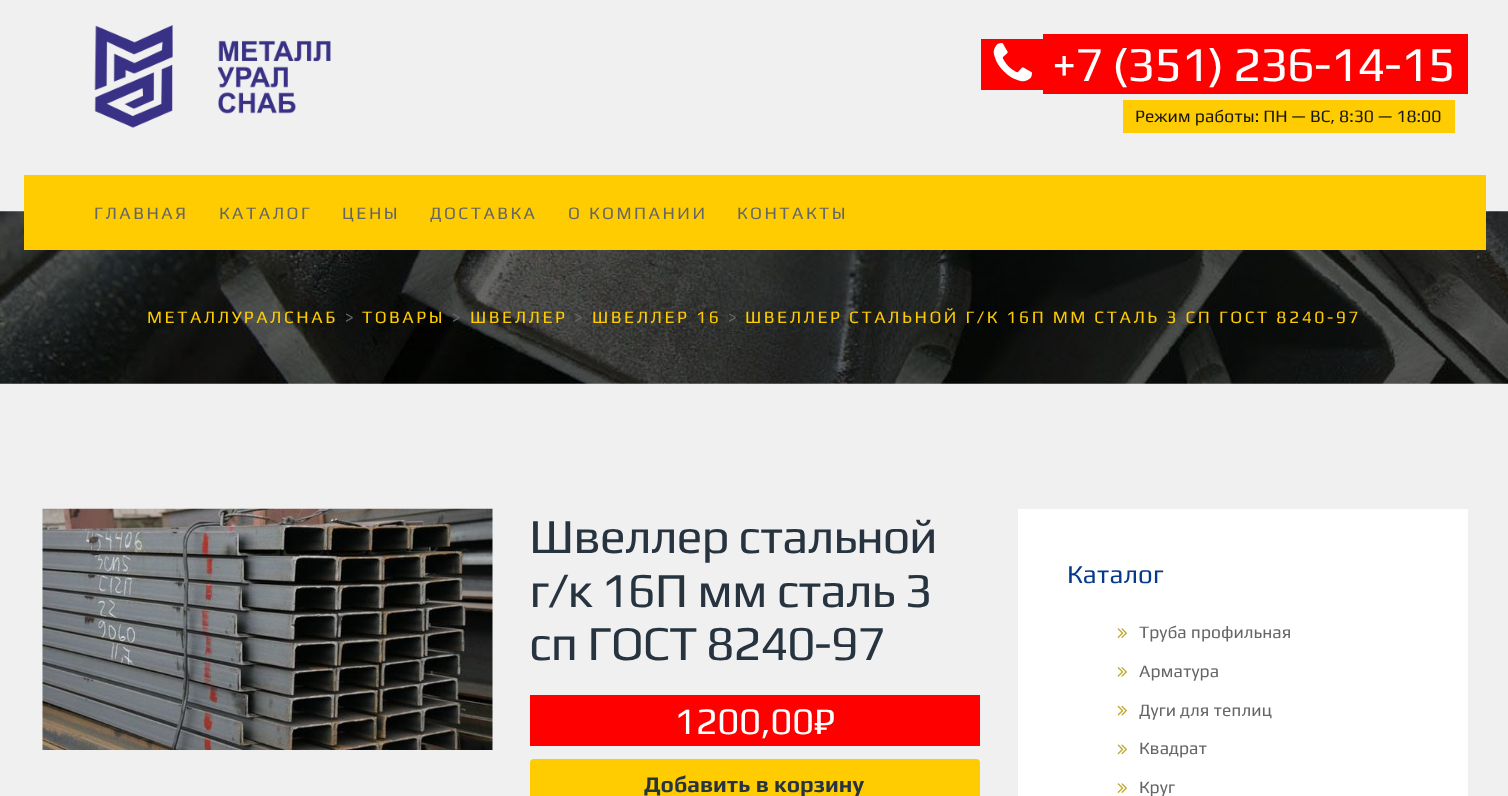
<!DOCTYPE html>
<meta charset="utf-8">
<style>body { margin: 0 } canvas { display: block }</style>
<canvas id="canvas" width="1508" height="796"></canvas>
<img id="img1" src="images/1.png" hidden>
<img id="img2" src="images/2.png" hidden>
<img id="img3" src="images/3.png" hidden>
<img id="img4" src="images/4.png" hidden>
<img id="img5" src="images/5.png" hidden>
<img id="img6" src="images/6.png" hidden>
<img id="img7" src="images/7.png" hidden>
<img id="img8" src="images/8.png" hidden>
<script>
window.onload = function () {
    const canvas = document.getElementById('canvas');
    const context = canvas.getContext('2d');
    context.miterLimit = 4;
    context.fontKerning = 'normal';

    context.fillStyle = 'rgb(240, 240, 240)';
    context.fillRect(0, 0, 1508, 796);
    context.drawImage(document.getElementById('img1'), 94, 25, 237, 103);
    context.fillStyle = 'rgb(255, 0, 0)';
    context.fillRect(981, 39, 62, 51);
    context.fillRect(1043, 34, 425, 60);
    context.drawImage(document.getElementById('img2'), 993, 43, 39, 39);
    context.fillStyle = 'rgb(254, 204, 0)';
    context.fillRect(1123, 100, 332, 33);
    context.drawImage(document.getElementById('img3'), 0, 211, 1508, 173);
    context.fillRect(24, 175, 1462, 75);
    context.drawImage(document.getElementById('img4'), 42, 508, 451, 242);
    context.fillStyle = 'rgb(255, 0, 0)';
    context.fillRect(530, 695, 450, 51);
    context.fillStyle = 'rgb(254, 204, 0)';
    context.beginPath();
    context.roundRect(530, 759, 450, 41, 4);
    context.fill();
    context.fillStyle = 'rgb(255, 255, 255)';
    context.fillRect(1018, 509, 450, 287);
    context.drawImage(document.getElementById('img5'), 1117, 628, 10, 10);
    context.drawImage(document.getElementById('img6'), 1117, 667, 10, 10);
    context.drawImage(document.getElementById('img7'), 1117, 705, 10, 11);
    context.drawImage(document.getElementById('img8'), 1117, 744, 10, 11);
    context.drawImage(document.getElementById('img5'), 1117, 783, 10, 10);
    context.letterSpacing = '-1.25px';
    context.font = '48.75px Play';
    context.fillText('+7 (351) 236-14-15', 1052, 81);
    context.letterSpacing = '0px';
    context.font = '17.5px Play';
    context.fillStyle = 'rgb(23, 23, 23)';
    context.fillText('Режим работы: ПН — ВС, 8:30 — 18:00', 1135, 122);
    context.letterSpacing = '2.5px';
    context.fillStyle = 'rgb(102, 102, 102)';
    context.fillText('ГЛАВНАЯ', 94, 219);
    context.fillText('КАТАЛОГ', 219, 219);
    context.fillText('ЦЕНЫ', 342, 219);
    context.fillText('ДОСТАВКА', 430, 219);
    context.fillText('О КОМПАНИИ', 568, 219);
    context.fillText('КОНТАКТЫ', 737, 219);
    context.fillStyle = 'rgb(254, 204, 0)';
    context.fillText('МЕТАЛЛУРАЛСНАБ', 147, 323);
    context.fillStyle = 'rgb(102, 102, 102)';
    context.fillText('>', 345, 323);
    context.fillStyle = 'rgb(254, 204, 0)';
    context.fillText('ТОВАРЫ', 362, 323);
    context.fillStyle = 'rgb(102, 102, 102)';
    context.fillText('>', 452, 323);
    context.fillStyle = 'rgb(254, 204, 0)';
    context.fillText('ШВЕЛЛЕР', 470, 323);
    context.fillStyle = 'rgb(102, 102, 102)';
    context.fillText('>', 574, 323);
    context.fillStyle = 'rgb(254, 204, 0)';
    context.fillText('ШВЕЛЛЕР 16', 592, 323);
    context.fillStyle = 'rgb(102, 102, 102)';
    context.fillText('>', 728, 323);
    context.fillStyle = 'rgb(254, 204, 0)';
    context.fillText('ШВЕЛЛЕР СТАЛЬНОЙ Г/К 16П ММ СТАЛЬ 3 СП ГОСТ 8240-97', 745, 323);
    context.letterSpacing = '-1.25px';
    context.font = '48.75px Play';
    context.fillStyle = 'rgb(39, 52, 64)';
    context.fillText('Швеллер стальной', 529, 553);
    context.fillText('г/к 16П мм сталь 3', 529, 607);
    context.fillText('сп ГОСТ 8240-97', 529, 660);
    context.letterSpacing = '0px';
    context.font = '37.5px Play';
    context.fillStyle = 'rgb(255, 255, 255)';
    context.fillText('1200,00₽', 674, 734);
    context.font = 'bold 22.5px Play';
    context.fillStyle = 'rgb(39, 52, 64)';
    context.fillText('Добавить в корзину', 644, 792);
    context.font = '26px Play';
    context.fillStyle = 'rgb(4, 57, 139)';
    context.fillText('Каталог', 1067, 583);
    context.font = '17.5px Play';
    context.fillStyle = 'rgb(102, 102, 102)';
    context.fillText('Труба профильная', 1139, 638);
    context.fillText('Арматура', 1139, 677);
    context.fillText('Дуги для теплиц', 1139, 716);
    context.fillText('Квадрат', 1139, 754);
    context.fillText('Круг', 1139, 793);
};
</script>
